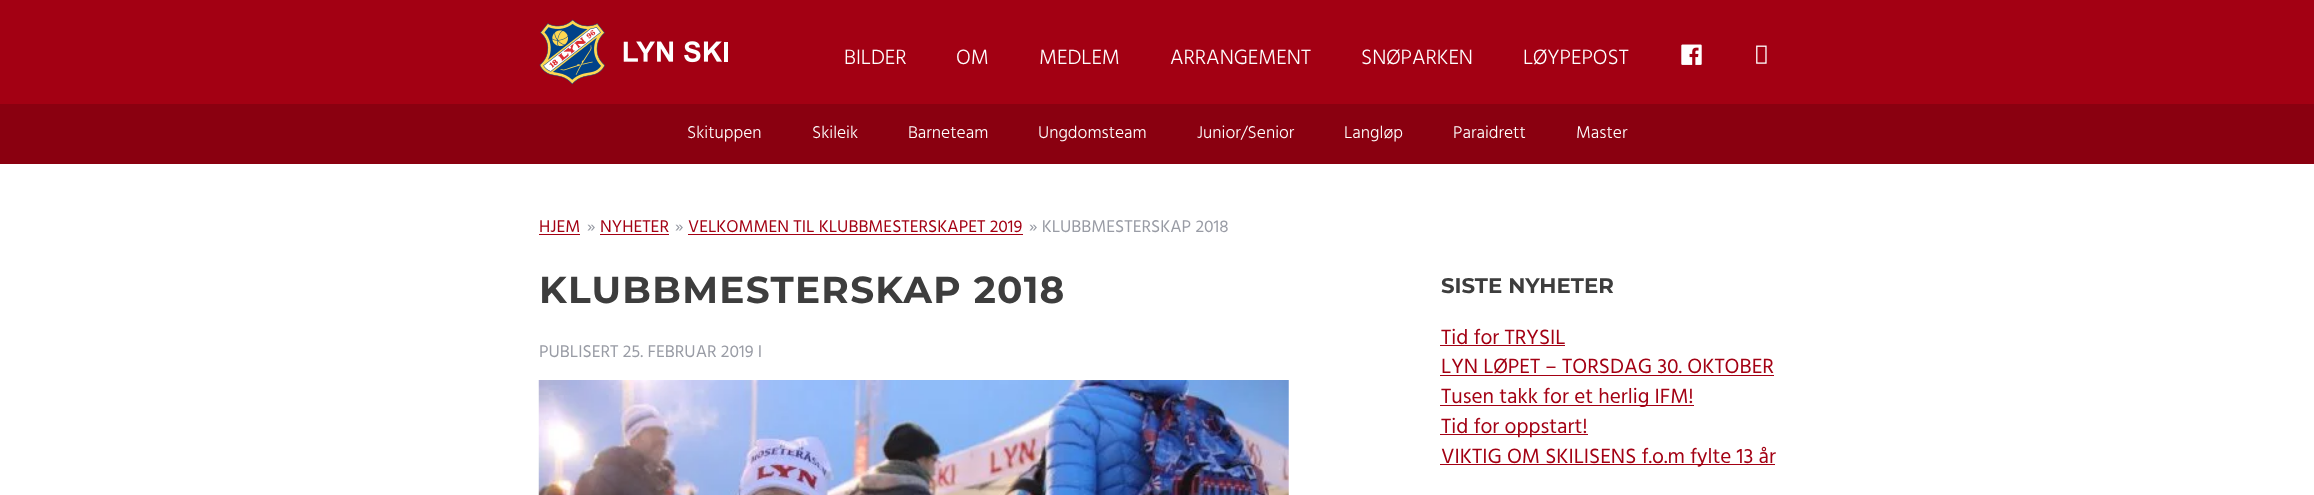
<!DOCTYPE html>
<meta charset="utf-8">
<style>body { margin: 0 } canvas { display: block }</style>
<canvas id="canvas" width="2314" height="495"></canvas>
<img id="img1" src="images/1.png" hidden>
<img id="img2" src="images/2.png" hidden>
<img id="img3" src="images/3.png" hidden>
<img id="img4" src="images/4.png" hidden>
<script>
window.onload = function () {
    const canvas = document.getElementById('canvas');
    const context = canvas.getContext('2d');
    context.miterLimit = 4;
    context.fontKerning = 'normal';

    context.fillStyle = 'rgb(255, 255, 255)';
    context.fillRect(0, 0, 2314, 495);
    context.fillStyle = 'rgb(163, 0, 19)';
    context.fillRect(0, 0, 2314, 104);
    context.drawImage(document.getElementById('img1'), 539, 19, 189, 66);
    context.drawImage(document.getElementById('img2'), 1681, 44, 21, 21);
    context.drawImage(document.getElementById('img3'), 1756, 45, 11, 19);
    context.fillStyle = 'rgb(138, 0, 16)';
    context.fillRect(0, 104, 2314, 60);
    context.fillStyle = 'rgb(163, 0, 19)';
    context.fillRect(539, 234, 41, 1);
    context.fillRect(600, 234, 69, 1);
    context.fillRect(688, 234, 335, 1);
    context.drawImage(document.getElementById('img4'), 538, 380, 751, 115);
    context.fillRect(1440, 345, 125, 1);
    context.fillRect(1440, 375, 334, 1);
    context.fillRect(1440, 405, 254, 1);
    context.fillRect(1440, 434, 148, 1);
    context.fillRect(1440, 464, 335, 1);
    context.font = '300 21.25px Hind';
    context.fillStyle = 'rgb(255, 255, 255)';
    context.fillText('BILDER', 844, 64);
    context.fillText('OM', 956, 64);
    context.fillText('MEDLEM', 1039, 64);
    context.fillText('ARRANGEMENT', 1170, 64);
    context.fillText('SNØPARKEN', 1361, 64);
    context.fillText('LØYPEPOST', 1523, 64);
    context.font = '300 17.5px Hind';
    context.fillText('Skituppen', 687, 138);
    context.fillText('Skileik', 812, 138);
    context.fillText('Barneteam', 908, 138);
    context.fillText('Ungdomsteam', 1038, 138);
    context.fillText('Junior/Senior', 1197, 138);
    context.fillText('Langløp', 1344, 138);
    context.fillText('Paraidrett', 1453, 138);
    context.fillText('Master', 1576, 138);
    context.font = '17.5px Hind';
    context.fillStyle = 'rgb(163, 0, 19)';
    context.fillText('HJEM', 539, 232);
    context.fillStyle = 'rgb(153, 156, 165)';
    context.fillText('»', 587, 232);
    context.fillStyle = 'rgb(163, 0, 19)';
    context.fillText('NYHETER', 600, 232);
    context.fillStyle = 'rgb(153, 156, 165)';
    context.fillText('»', 675, 232);
    context.fillStyle = 'rgb(163, 0, 19)';
    context.fillText('VELKOMMEN TIL KLUBBMESTERSKAPET 2019', 688, 232);
    context.fillStyle = 'rgb(153, 156, 165)';
    context.fillText('» KLUBBMESTERSKAP 2018', 1029, 232);
    context.letterSpacing = '1.25px';
    context.font = 'bold 37.5px Montserrat';
    context.fillStyle = 'rgb(61, 61, 61)';
    context.fillText('KLUBBMESTERSKAP 2018', 539, 303);
    context.letterSpacing = '0px';
    context.font = '17.5px Hind';
    context.fillStyle = 'rgb(153, 156, 165)';
    context.fillText('PUBLISERT 25. FEBRUAR 2019 I', 539, 357);
    context.font = 'bold 21.25px Montserrat';
    context.fillStyle = 'rgb(61, 61, 61)';
    context.fillText('SISTE NYHETER', 1441, 293);
    context.font = '21.25px Hind';
    context.fillStyle = 'rgb(163, 0, 19)';
    context.fillText('Tid for TRYSIL', 1441, 344);
    context.fillText('LYN LØPET – TORSDAG 30. OKTOBER', 1441, 373);
    context.fillText('Tusen takk for et herlig IFM!', 1441, 403);
    context.fillText('Tid for oppstart!', 1441, 433);
    context.fillText('VIKTIG OM SKILISENS f.o.m fylte 13 år', 1441, 463);
};
</script>
